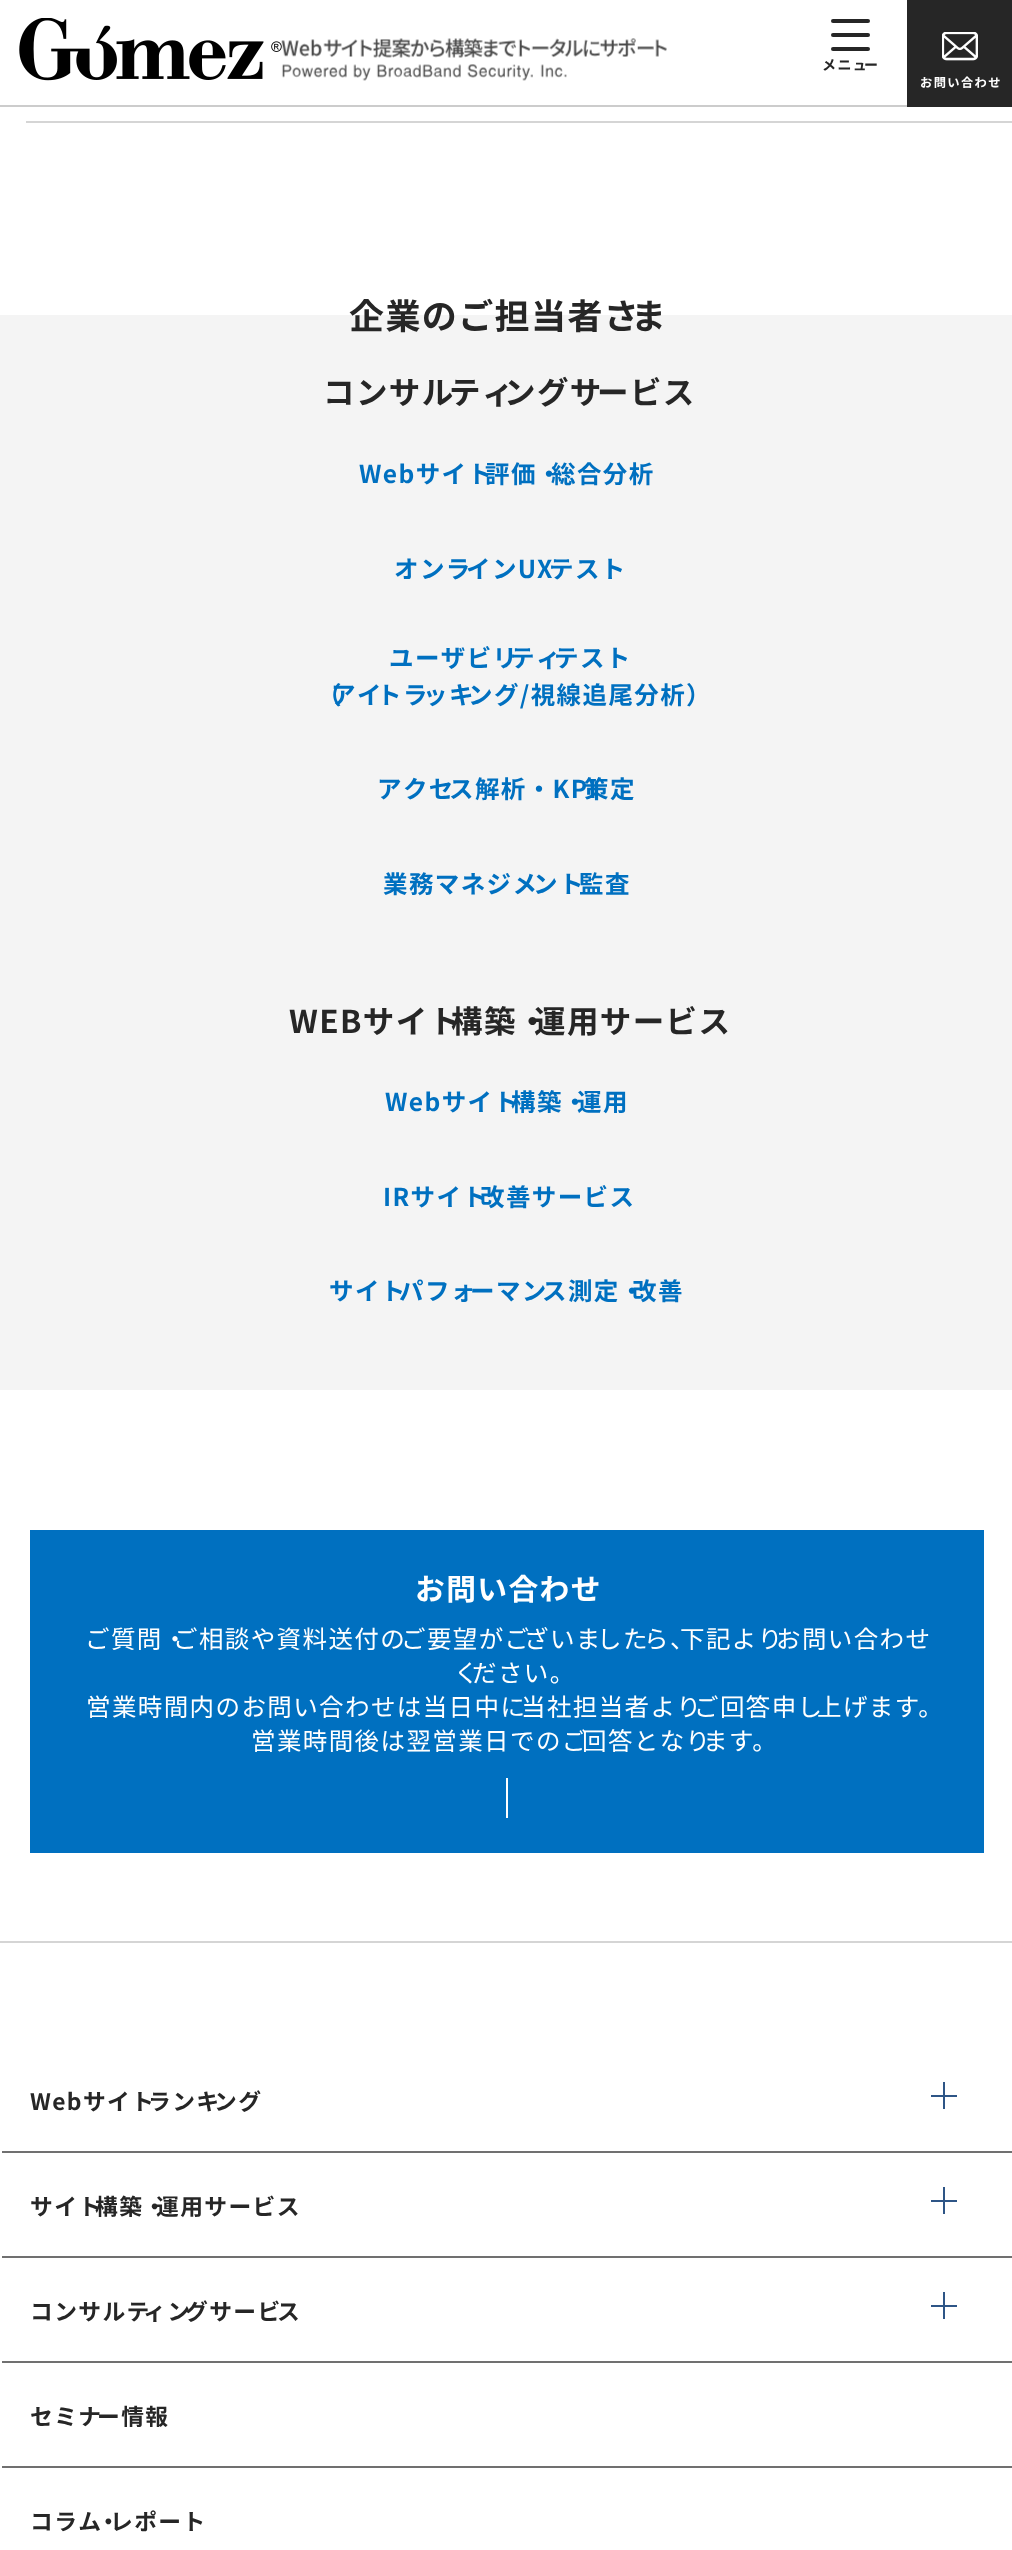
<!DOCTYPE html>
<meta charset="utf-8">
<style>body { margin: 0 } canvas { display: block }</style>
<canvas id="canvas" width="1012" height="2550"></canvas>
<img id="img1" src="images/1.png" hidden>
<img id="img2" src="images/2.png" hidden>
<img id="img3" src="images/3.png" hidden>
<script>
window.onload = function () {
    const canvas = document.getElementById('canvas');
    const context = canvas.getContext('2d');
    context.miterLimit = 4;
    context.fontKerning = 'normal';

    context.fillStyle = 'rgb(255, 255, 255)';
    context.fillRect(0, 0, 1012, 2550);
    context.fillStyle = 'rgb(204, 204, 204)';
    context.fillRect(0, 105, 907, 2);
    context.drawImage(document.getElementById('img1'), 19, 18, 263, 63);
    context.drawImage(document.getElementById('img2'), 281, 38, 386, 43);
    context.fillStyle = 'rgb(38, 38, 38)';
    context.beginPath();
    context.roundRect(831, 19, 39, 4, 2);
    context.fill();
    context.beginPath();
    context.roundRect(831, 33, 39, 4, 2);
    context.fill();
    context.beginPath();
    context.roundRect(831, 47, 39, 4, 2);
    context.fill();
    context.fillRect(907, 0, 105, 107);
    context.drawImage(document.getElementById('img3'), 942, 32, 36, 29);
    context.fillStyle = 'rgb(213, 213, 213)';
    context.fillRect(26, 121, 986, 2);
    context.fillStyle = 'rgb(244, 244, 244)';
    context.fillRect(0, 315, 1012, 1075);
    context.fillStyle = 'rgb(0, 112, 192)';
    context.fillRect(30, 1530, 954, 323);
    context.fillStyle = 'rgb(255, 255, 255)';
    context.fillRect(506, 1778, 2, 40);
    context.fillStyle = 'rgb(213, 213, 213)';
    context.fillRect(0, 1941, 1012, 2);
    context.fillStyle = 'rgb(112, 112, 112)';
    context.fillRect(2, 2151, 1010, 2);
    context.fillStyle = 'rgb(46, 85, 134)';
    context.fillRect(931, 2095, 26, 2);
    context.fillRect(943, 2082, 2, 27);
    context.fillStyle = 'rgb(112, 112, 112)';
    context.fillRect(2, 2256, 1010, 2);
    context.fillStyle = 'rgb(46, 85, 134)';
    context.fillRect(931, 2200, 26, 2);
    context.fillRect(943, 2187, 2, 27);
    context.fillStyle = 'rgb(112, 112, 112)';
    context.fillRect(2, 2361, 1010, 2);
    context.fillStyle = 'rgb(46, 85, 134)';
    context.fillRect(931, 2305, 26, 2);
    context.fillRect(943, 2292, 2, 27);
    context.fillStyle = 'rgb(112, 112, 112)';
    context.fillRect(2, 2466, 1010, 2);
    context.letterSpacing = '1.4px';
    context.font = 'bold 14px Noto Sans JP';
    context.fillStyle = 'rgb(38, 38, 38)';
    context.fillText('メニュ', 822, 70);
    context.fillText('ー', 864, 70);
    context.font = 'bold 12.25px Noto Sans JP';
    context.fillStyle = 'rgb(255, 255, 255)';
    context.fillText('お問い合わせ', 920, 87);
    context.font = 'bold 35px Noto Sans JP';
    context.fillStyle = 'rgb(38, 38, 38)';
    context.fillText('企業のご担当者さ', 349, 329);
    context.fillText('ま', 631, 329);
    context.font = 'bold 31.5px Noto Sans JP';
    context.fillText('コンサル', 323, 404);
    context.fillText('ティ', 449, 404);
    context.fillText('ングサ', 504, 404);
    context.fillText('ービス', 597, 404);
    context.font = 'bold 24.5px Noto Sans JP';
    context.fillStyle = 'rgb(0, 112, 192)';
    context.fillText('Webサイト', 359, 483);
    context.fillText('評価・', 485, 483);
    context.fillText('総合分析', 551, 483);
    context.fillText('オンラ', 394, 578);
    context.fillText('インUX', 466, 578);
    context.fillText('テスト', 549, 578);
    context.fillText('ユーザビリ', 389, 667);
    context.fillText('ティ', 510, 667);
    context.fillText('テスト', 554, 667);
    context.fillText('（', 317, 704);
    context.fillText('アイ', 331, 704);
    context.fillText('トラ', 377, 704);
    context.fillText('ッキ', 423, 704);
    context.fillText('ング/視線追尾分析）', 468, 704);
    context.fillText('アクセ', 377, 798);
    context.fillText('ス解析・KPI', 449, 798);
    context.fillText('策定', 584, 798);
    context.fillText('業務マネジメ', 383, 893);
    context.fillText('ント', 533, 893);
    context.fillText('監査', 579, 893);
    context.font = 'bold 31.5px Noto Sans JP';
    context.fillStyle = 'rgb(38, 38, 38)';
    context.fillText('WEBサイト', 289, 1033);
    context.fillText('構築・', 451, 1033);
    context.fillText('運用サービス', 534, 1033);
    context.font = 'bold 24.5px Noto Sans JP';
    context.fillStyle = 'rgb(0, 112, 192)';
    context.fillText('Webサイト', 385, 1111);
    context.fillText('構築・', 511, 1111);
    context.fillText('運用', 577, 1111);
    context.fillText('IRサイト', 383, 1206);
    context.fillText('改善サービス', 480, 1206);
    context.fillText('サイト', 329, 1300);
    context.fillText('パフォ', 399, 1300);
    context.fillText('ーマン', 470, 1300);
    context.fillText('ス測定・', 542, 1300);
    context.fillText('改善', 632, 1300);
    context.font = 'bold 29.75px Noto Sans JP';
    context.fillStyle = 'rgb(255, 255, 255)';
    context.fillText('お問い合わせ', 415, 1600);
    context.font = '24.5px Noto Sans JP';
    context.fillText('ご質問・', 85, 1648);
    context.fillText('ご相談や資料送付の', 173, 1648);
    context.fillText('ご要望がご', 401, 1648);
    context.fillText('ざいま', 524, 1648);
    context.fillText('した', 597, 1648);
    context.fillText('ら、', 644, 1648);
    context.fillText('下記より', 680, 1648);
    context.fillText('お問い合わせ', 776, 1648);
    context.fillText('く', 454, 1682);
    context.fillText('ださい。', 472, 1682);
    context.fillText('営業時間内のお問い合わせは当日中に', 86, 1716);
    context.fillText('当社担当者より', 521, 1716);
    context.fillText('ご回答申し', 694, 1716);
    context.fillText('上げます。', 817, 1716);
    context.fillText('営業時間後は翌営業日でのご', 251, 1750);
    context.fillText('回答となり', 582, 1750);
    context.fillText('ます。', 703, 1750);
    context.font = 'bold 22.75px Noto Sans JP';
    context.fillStyle = 'rgb(38, 38, 38)';
    context.fillText('Webサイト', 30, 2110);
    context.fillText('ランキ', 148, 2110);
    context.fillText('ング', 214, 2110);
    context.fillText('サイト', 30, 2215);
    context.fillText('構築・', 95, 2215);
    context.fillText('運用サービス', 156, 2215);
    context.fillText('コンサルテ', 30, 2320);
    context.fillText('ィン', 143, 2320);
    context.fillText('グサービ', 185, 2320);
    context.fillText('ス', 277, 2320);
    context.fillText('セミナ', 30, 2425);
    context.fillText('ー情報', 97, 2425);
    context.fillText('コラム', 30, 2530);
    context.fillText('・', 97, 2530);
    context.fillText('レポート', 110, 2530);
};
</script>
